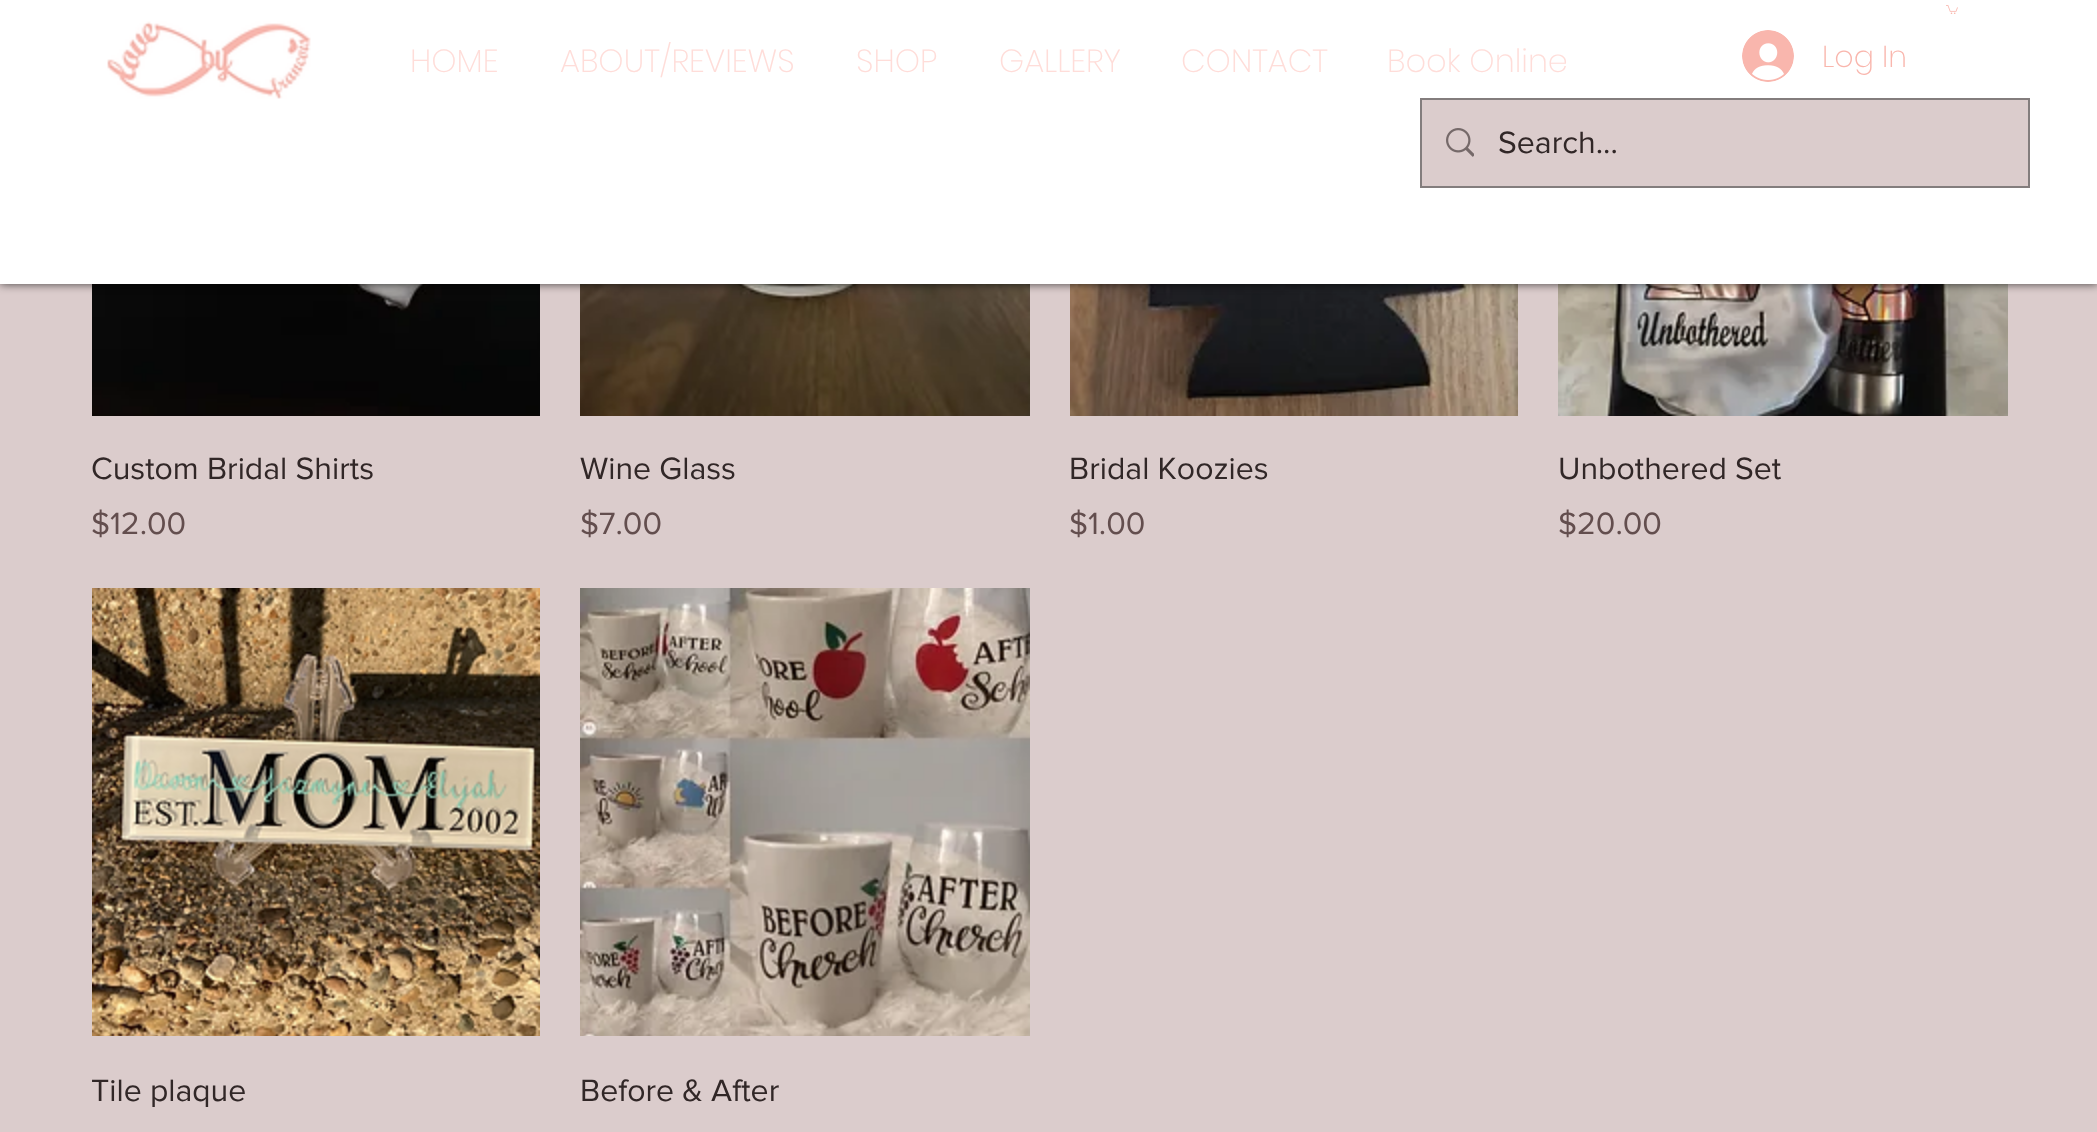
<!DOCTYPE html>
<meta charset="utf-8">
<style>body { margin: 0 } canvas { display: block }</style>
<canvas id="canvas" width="2097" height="1132"></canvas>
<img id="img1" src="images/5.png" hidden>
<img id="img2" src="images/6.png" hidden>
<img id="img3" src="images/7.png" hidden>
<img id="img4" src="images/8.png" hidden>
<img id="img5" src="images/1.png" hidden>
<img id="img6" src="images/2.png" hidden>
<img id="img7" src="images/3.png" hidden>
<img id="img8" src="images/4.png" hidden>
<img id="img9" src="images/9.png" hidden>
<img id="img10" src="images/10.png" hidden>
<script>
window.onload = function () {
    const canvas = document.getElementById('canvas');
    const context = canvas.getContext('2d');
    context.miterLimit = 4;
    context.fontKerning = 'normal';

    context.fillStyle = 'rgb(219, 204, 204)';
    context.fillRect(0, 0, 2097, 1132);
    context.drawImage(document.getElementById('img1'), 92, 284, 448, 132);
    context.drawImage(document.getElementById('img2'), 580, 284, 450, 132);
    context.drawImage(document.getElementById('img3'), 1070, 284, 448, 132);
    context.drawImage(document.getElementById('img4'), 1558, 284, 450, 132);
    context.fillStyle = 'rgba(0, 0, 0, 0.7)';
    context.filter = 'blur(5px)';
    context.beginPath();
    context.rect(0, 0, 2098, 284);
    context.fill();
    context.filter = 'none';
    context.fillStyle = 'rgb(255, 255, 255)';
    context.fillRect(0, 0, 2097, 284);
    context.drawImage(document.getElementById('img5'), 1946, 5, 12, 9);
    context.drawImage(document.getElementById('img6'), 107, 21, 204, 78);
    context.drawImage(document.getElementById('img7'), 1742, 30, 52, 52);
    context.strokeStyle = 'rgb(131, 125, 125)';
    context.lineWidth = 2;
    context.strokeRect(1421, 99, 608, 88);
    context.fillStyle = 'rgb(219, 204, 204)';
    context.fillRect(1422, 100, 606, 86);
    context.drawImage(document.getElementById('img8'), 1446, 128, 28, 29);
    context.drawImage(document.getElementById('img9'), 92, 588, 448, 448);
    context.drawImage(document.getElementById('img10'), 580, 588, 450, 448);
    context.font = '200 32px Poppins';
    context.fillStyle = 'rgb(255, 221, 217)';
    context.fillText('HOME', 410, 72);
    context.fillText('ABOUT/REVIEWS', 560, 72);
    context.fillText('SHOP', 856, 72);
    context.fillText('GALLERY', 999, 72);
    context.fillText('CONTACT', 1181, 72);
    context.fillText('Book Online', 1387, 72);
    context.font = '200 30px Poppins';
    context.fillStyle = 'rgb(249, 182, 173)';
    context.fillText('Log In', 1822, 67);
    context.font = '32px "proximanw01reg"';
    context.fillStyle = 'rgb(49, 39, 39)';
    context.fillText('Search...', 1498, 153);
    context.fillText('Custom Bridal Shirts', 91, 479);
    context.fillStyle = 'rgb(99, 78, 78)';
    context.fillText('$12.00', 91, 534);
    context.fillStyle = 'rgb(49, 39, 39)';
    context.fillText('Wine Glass', 580, 479);
    context.fillStyle = 'rgb(99, 78, 78)';
    context.fillText('$7.00', 580, 534);
    context.fillStyle = 'rgb(49, 39, 39)';
    context.fillText('Bridal Koozies', 1069, 479);
    context.fillStyle = 'rgb(99, 78, 78)';
    context.fillText('$1.00', 1069, 534);
    context.fillStyle = 'rgb(49, 39, 39)';
    context.fillText('Unbothered Set', 1558, 479);
    context.fillStyle = 'rgb(99, 78, 78)';
    context.fillText('$20.00', 1558, 534);
    context.fillStyle = 'rgb(49, 39, 39)';
    context.fillText('Tile plaque', 91, 1101);
    context.fillText('Before & After', 580, 1101);
};
</script>
